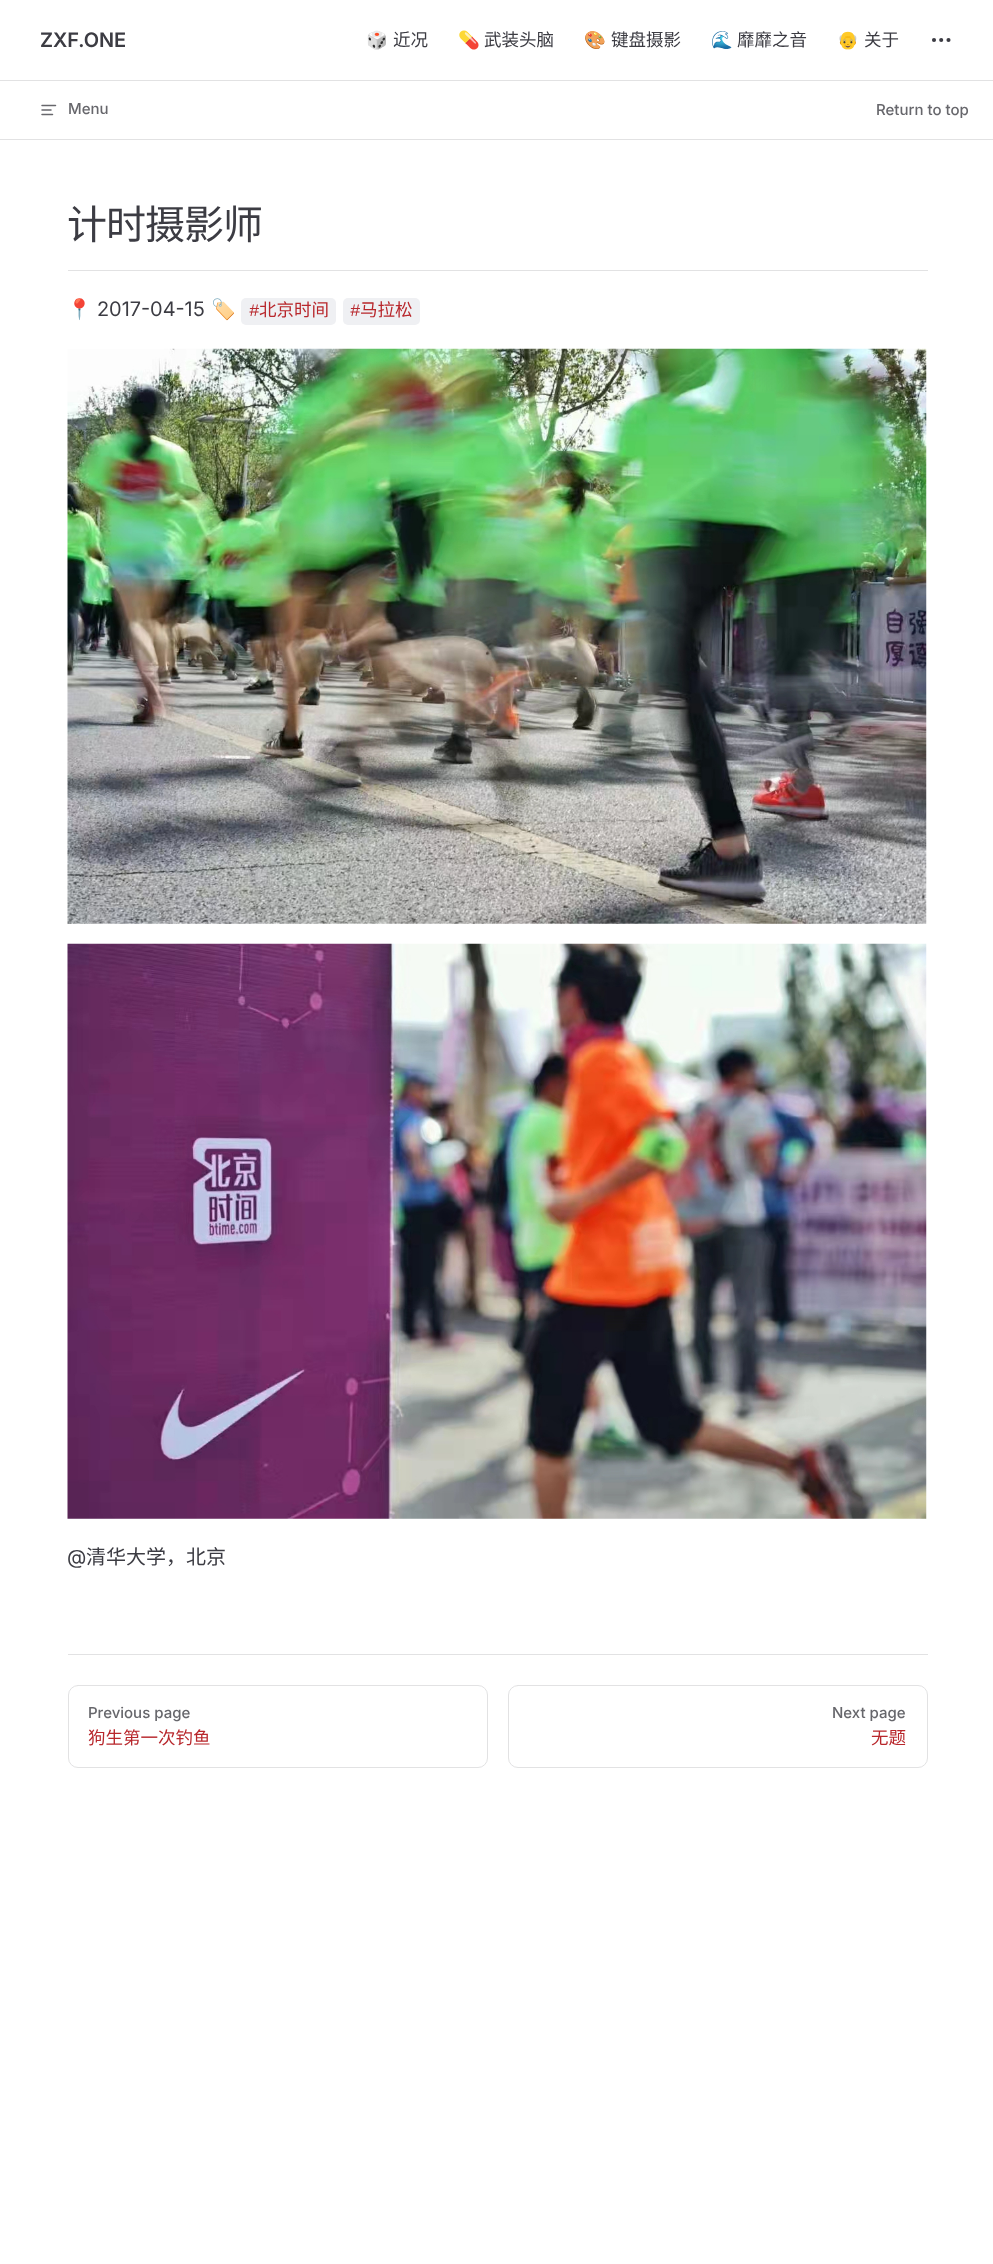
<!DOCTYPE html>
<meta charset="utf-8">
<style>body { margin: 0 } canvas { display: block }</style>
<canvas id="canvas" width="993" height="2264"></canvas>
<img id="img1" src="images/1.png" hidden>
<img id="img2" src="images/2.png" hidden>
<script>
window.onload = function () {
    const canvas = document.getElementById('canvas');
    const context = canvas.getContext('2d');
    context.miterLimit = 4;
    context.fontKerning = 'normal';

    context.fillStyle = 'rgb(255, 255, 255)';
    context.fillRect(0, 0, 993, 2264);
    context.beginPath();
    context.arc(941.2, 40, 1, 0, 2 * Math.PI);
    context.strokeStyle = 'rgb(60, 60, 67)';
    context.lineWidth = 2.1;
    context.stroke();
    context.beginPath();
    context.arc(948.5, 40, 1, 0, 2 * Math.PI);
    context.stroke();
    context.beginPath();
    context.arc(934, 40, 1, 0, 2 * Math.PI);
    context.stroke();
    context.fillStyle = 'rgb(226, 226, 227)';
    context.fillRect(0, 80, 993, 1);
    context.fillRect(0, 139, 993, 1);
    context.beginPath();
    context.moveTo(55.5, 105.5);
    context.lineTo(42, 105.5);
    context.moveTo(51, 110);
    context.lineTo(42, 110);
    context.moveTo(52.5, 114.5);
    context.lineTo(42, 114.5);
    context.strokeStyle = 'rgb(103, 103, 108)';
    context.lineWidth = 1.5;
    context.lineCap = 'round';
    context.lineJoin = 'round';
    context.stroke();
    context.fillRect(68, 270, 860, 1);
    context.fillStyle = 'rgb(239, 240, 243)';
    context.beginPath();
    context.roundRect(241, 298, 95, 27, 5);
    context.fill();
    context.beginPath();
    context.roundRect(343, 298, 77, 27, 5);
    context.fill();
    context.drawImage(document.getElementById('img1'), 67, 348, 860, 576);
    context.drawImage(document.getElementById('img2'), 67, 943, 860, 576);
    context.fillStyle = 'rgb(226, 226, 227)';
    context.fillRect(68, 1654, 860, 1);
    context.beginPath();
    context.roundRect(68.5, 1685.5, 419, 82, 9.5);
    context.strokeStyle = 'rgb(226, 226, 227)';
    context.lineWidth = 1;
    context.lineJoin = 'miter';
    context.stroke();
    context.beginPath();
    context.roundRect(508.5, 1685.5, 419, 82, 9.5);
    context.stroke();
    context.font = '600 20px Inter';
    context.fillStyle = 'rgb(60, 60, 67)';
    context.fillText('ZXF.ONE', 40, 47);
    context.font = '17.5px "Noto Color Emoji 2"';
    context.fillText('🎲', 366, 46);
    context.font = '17.5px Noto Sans CJK SC';
    context.fillText('近况', 393, 46);
    context.font = '17.5px "Noto Color Emoji 2"';
    context.fillText('💊', 458, 46);
    context.font = '17.5px Noto Sans CJK SC';
    context.fillText('武装头脑', 484, 46);
    context.font = '17.5px "Noto Color Emoji 2"';
    context.fillText('🎨', 584, 46);
    context.font = '17.5px Noto Sans CJK SC';
    context.fillText('键盘摄影', 611, 46);
    context.font = '17.5px "Noto Color Emoji 2"';
    context.fillText('🌊', 711, 46);
    context.font = '17.5px Noto Sans CJK SC';
    context.fillText('靡靡之音', 737, 46);
    context.font = '17.5px "Noto Color Emoji 2"';
    context.fillText('👴', 837, 46);
    context.font = '17.5px Noto Sans CJK SC';
    context.fillText('关于', 864, 46);
    context.font = '500 15px Inter';
    context.fillStyle = 'rgb(103, 103, 108)';
    context.fillText('Menu', 68, 114);
    context.fillText('Return to top', 876, 115);
    context.letterSpacing = '-1px';
    context.font = '40px Noto Sans CJK SC';
    context.fillStyle = 'rgb(60, 60, 67)';
    context.fillText('计时摄影师', 67, 239);
    context.letterSpacing = '0px';
    context.font = '20px Noto Color Emoji';
    context.fillText('📍', 67, 316);
    context.font = '20px Inter';
    context.fillText('2017-04-15', 97, 316);
    context.font = '20px Noto Color Emoji';
    context.fillText('🏷️', 211, 316);
    context.font = '17.5px Liberation Mono';
    context.fillStyle = 'rgb(184, 39, 44)';
    context.fillText('#', 249, 316);
    context.font = '17.5px Noto Sans CJK SC';
    context.fillText('北京时间', 259, 316);
    context.font = '17.5px Liberation Mono';
    context.fillText('#', 350, 316);
    context.font = '17.5px Noto Sans CJK SC';
    context.fillText('马拉松', 360, 316);
    context.font = '20px "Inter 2"';
    context.fillStyle = 'rgb(60, 60, 67)';
    context.fillText('@', 67, 1564);
    context.font = '20px Noto Sans CJK SC';
    context.fillText('清华大学，北京', 86, 1564);
    context.font = '500 15px Inter';
    context.fillStyle = 'rgb(103, 103, 108)';
    context.fillText('Previous page', 88, 1718);
    context.font = '17.5px Noto Sans CJK SC';
    context.fillStyle = 'rgb(184, 39, 44)';
    context.fillText('狗生第一次钓鱼', 88, 1744);
    context.font = '500 15px Inter';
    context.fillStyle = 'rgb(103, 103, 108)';
    context.fillText('Next page', 832, 1718);
    context.font = '17.5px Noto Sans CJK SC';
    context.fillStyle = 'rgb(184, 39, 44)';
    context.fillText('无题', 871, 1744);
};
</script>
